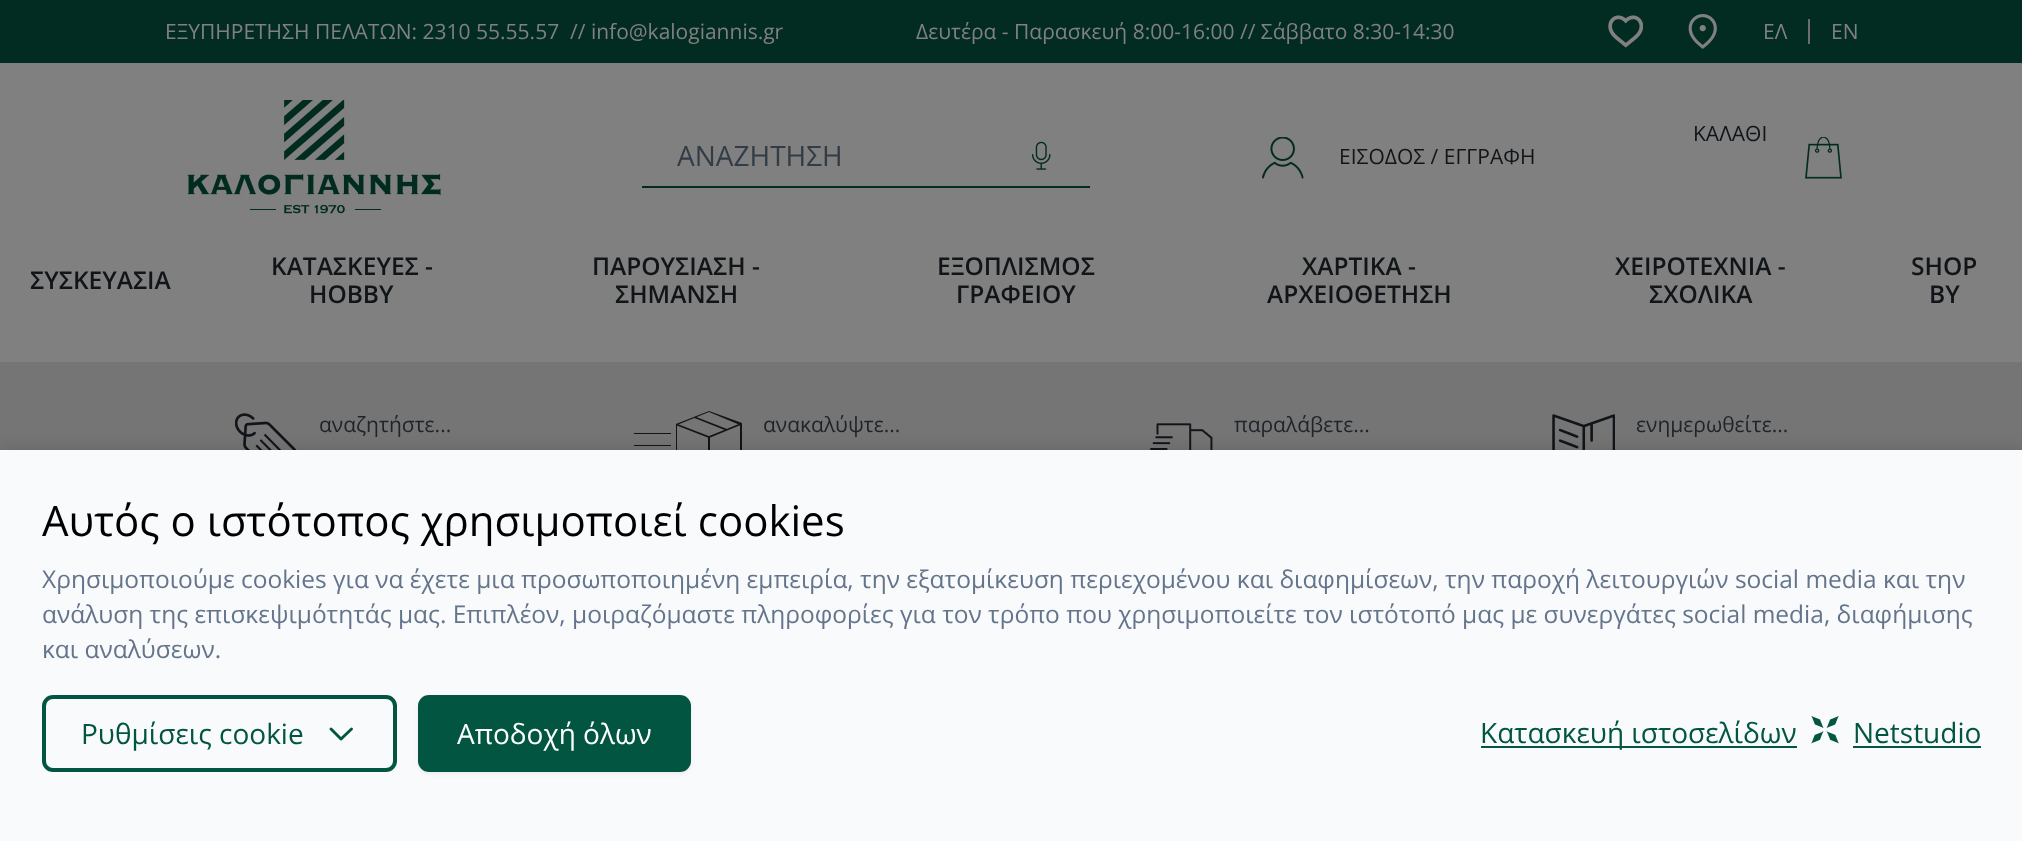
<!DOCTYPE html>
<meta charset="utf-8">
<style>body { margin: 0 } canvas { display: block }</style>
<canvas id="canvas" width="2022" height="841"></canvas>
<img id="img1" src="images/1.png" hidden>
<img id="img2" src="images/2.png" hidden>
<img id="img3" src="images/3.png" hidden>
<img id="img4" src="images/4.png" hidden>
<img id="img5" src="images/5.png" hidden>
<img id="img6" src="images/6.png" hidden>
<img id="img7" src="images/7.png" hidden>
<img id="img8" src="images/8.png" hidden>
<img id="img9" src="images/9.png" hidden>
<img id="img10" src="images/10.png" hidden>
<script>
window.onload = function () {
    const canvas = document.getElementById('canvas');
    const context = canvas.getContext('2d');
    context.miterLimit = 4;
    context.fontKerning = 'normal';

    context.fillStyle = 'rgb(128, 128, 128)';
    context.fillRect(0, 0, 2022, 841);
    context.fillStyle = 'rgb(2, 43, 33)';
    context.fillRect(0, 0, 2022, 63);
    context.drawImage(document.getElementById('img1'), 1608, 15, 35, 33);
    context.drawImage(document.getElementById('img2'), 1688, 14, 29, 35);
    context.fillStyle = 'rgb(108, 110, 109)';
    context.fillRect(1808, 19, 2, 25);
    context.drawImage(document.getElementById('img3'), 187, 100, 254, 114);
    context.drawImage(document.getElementById('img4'), 1805, 137, 37, 42);
    context.fillStyle = 'rgb(2, 43, 33)';
    context.fillRect(642, 186, 448, 2);
    context.drawImage(document.getElementById('img5'), 1032, 141, 19, 29);
    context.drawImage(document.getElementById('img6'), 1262, 137, 42, 42);
    context.fillStyle = 'rgb(117, 117, 117)';
    context.fillRect(0, 362, 2022, 88);
    context.drawImage(document.getElementById('img7'), 235, 413, 62, 37);
    context.fillStyle = 'rgb(17, 21, 24)';
    context.fillRect(708, 437, 2, 13);
    context.beginPath();
    context.moveTo(741, 424);
    context.lineTo(709, 437);
    context.lineTo(676.5, 424.5);
    context.strokeStyle = 'rgb(22, 21, 21)';
    context.lineWidth = 1.7;
    context.stroke();
    context.beginPath();
    context.moveTo(726, 430.5);
    context.lineTo(694.5, 418);
    context.lineTo(695, 416.5);
    context.lineTo(727, 429);
    context.closePath();
    context.fill('evenodd');
    context.beginPath();
    context.moveTo(740, 425);
    context.lineTo(709, 412);
    context.lineTo(677, 425);
    context.lineTo(677, 464);
    context.lineTo(709, 477);
    context.lineTo(740, 464);
    context.closePath();
    context.moveTo(709, 411);
    context.lineTo(742, 423);
    context.lineTo(742, 465);
    context.lineTo(709, 478);
    context.lineTo(676, 465);
    context.lineTo(676, 424);
    context.closePath();
    context.moveTo(634, 433);
    context.lineTo(671, 433);
    context.lineTo(671, 434);
    context.lineTo(634, 434);
    context.closePath();
    context.moveTo(634, 445);
    context.lineTo(671, 445);
    context.lineTo(671, 446);
    context.lineTo(634, 446);
    context.closePath();
    context.moveTo(646, 455);
    context.lineTo(671, 455);
    context.lineTo(671, 457);
    context.lineTo(646, 457);
    context.closePath();
    context.fill('evenodd');
    context.drawImage(document.getElementById('img8'), 1150, 423, 63, 27);
    context.drawImage(document.getElementById('img9'), 1552, 414, 63, 36);
    context.fillStyle = 'rgba(0, 0, 0, 0.15)';
    context.filter = 'blur(9px)';
    context.beginPath();
    context.rect(0, 450, 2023, 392);
    context.fill();
    context.filter = 'none';
    context.fillStyle = 'rgb(248, 250, 252)';
    context.fillRect(0, 450, 2022, 391);
    context.beginPath();
    context.roundRect(44, 697, 351, 73, 9);
    context.strokeStyle = 'rgb(2, 86, 65)';
    context.lineWidth = 4;
    context.stroke();
    context.beginPath();
    context.moveTo(351.5, 729);
    context.lineTo(341, 739);
    context.lineTo(331, 729);
    context.lineWidth = 2.9;
    context.lineCap = 'round';
    context.lineJoin = 'round';
    context.stroke();
    context.fillStyle = 'rgba(0, 0, 0, 0.05)';
    context.filter = 'blur(2px)';
    context.beginPath();
    context.roundRect(418, 697, 273, 77, 11);
    context.fill();
    context.filter = 'none';
    context.fillStyle = 'rgb(2, 86, 65)';
    context.beginPath();
    context.roundRect(418, 695, 273, 77, 11);
    context.fill();
    context.fillStyle = 'rgb(4, 86, 65)';
    context.fillRect(1481, 746, 316, 2);
    context.drawImage(document.getElementById('img10'), 1811, 716, 28, 28);
    context.fillRect(1853, 746, 128, 2);
    context.font = '21px Open Sans';
    context.fillStyle = 'rgb(128, 128, 128)';
    context.fillText('ΕΞΥΠΗΡΕΤΗΣΗ ΠΕΛΑΤΩΝ: 2310 55.55.57  // info@kalogiannis.gr', 165, 39);
    context.fillText('Δευτέρα - Παρασκευή 8:00-16:00 // Σάββατο 8:30-14:30', 916, 39);
    context.fillText('ΕΛ', 1763, 39);
    context.fillText('EN', 1831, 39);
    context.fillStyle = 'rgb(17, 21, 24)';
    context.fillText('ΚΑΛΑΘΙ', 1693, 141);
    context.font = '28px Open Sans';
    context.fillStyle = 'rgb(50, 60, 70)';
    context.fillText('ΑΝΑΖΗΤΗΣΗ', 677, 166);
    context.font = '21px Open Sans';
    context.fillStyle = 'rgb(17, 21, 24)';
    context.fillText('ΕΙΣΟΔΟΣ / ΕΓΓΡΑΦΗ', 1339, 164);
    context.font = '600 24.5px Open Sans';
    context.fillText('ΣΥΣΚΕΥΑΣΙΑ', 30, 289);
    context.fillText('ΚΑΤΑΣΚΕΥΕΣ -', 271, 275);
    context.fillText('HOBBY', 309, 303);
    context.fillText('ΠΑΡΟΥΣΙΑΣΗ -', 592, 275);
    context.fillText('ΣΗΜΑΝΣΗ', 615, 303);
    context.fillText('ΕΞΟΠΛΙΣΜΟΣ', 937, 275);
    context.fillText('ΓΡΑΦΕΙΟΥ', 956, 303);
    context.fillText('ΧΑΡΤΙΚΑ -', 1302, 275);
    context.fillText('ΑΡΧΕΙΟΘΕΤΗΣΗ', 1267, 303);
    context.fillText('ΧΕΙΡΟΤΕΧΝΙΑ -', 1615, 275);
    context.fillText('ΣΧΟΛΙΚΑ', 1649, 303);
    context.fillText('SHOP', 1911, 275);
    context.fillText('BY', 1929, 303);
    context.font = '21px Open Sans';
    context.fillStyle = 'rgb(31, 36, 41)';
    context.fillText('αναζητήστε...', 319, 432);
    context.fillText('ανακαλύψτε...', 763, 432);
    context.fillText('παραλάβετε...', 1234, 432);
    context.fillText('ενημερωθείτε...', 1636, 432);
    context.font = '42px Open Sans';
    context.fillStyle = 'rgb(0, 0, 0)';
    context.fillText('Αυτός ο ιστότοπος χρησιμοποιεί cookies', 42, 536);
    context.font = '24.5px Open Sans';
    context.fillStyle = 'rgb(100, 116, 139)';
    context.fillText('Χρησιμοποιούμε cookies για να έχετε μια προσωποποιημένη εμπειρία, την εξατομίκευση περιεχομένου και διαφημίσεων, την παροχή λειτουργιών social media και την', 42, 588);
    context.fillText('ανάλυση της επισκεψιμότητάς μας. Επιπλέον, μοιραζόμαστε πληροφορίες για τον τρόπο που χρησιμοποιείτε τον ιστότοπό μας με συνεργάτες social media, διαφήμισης', 42, 623);
    context.fillText('και αναλύσεων.', 42, 658);
    context.font = '28px Open Sans';
    context.fillStyle = 'rgb(2, 86, 65)';
    context.fillText('Ρυθμίσεις cookie', 81, 744);
    context.fillStyle = 'rgb(255, 255, 255)';
    context.fillText('Αποδοχή όλων', 457, 744);
    context.fillStyle = 'rgb(2, 86, 65)';
    context.fillText('Κατασκευή ιστοσελίδων', 1480, 743);
    context.fillText('Netstudio', 1853, 743);
};
</script>
